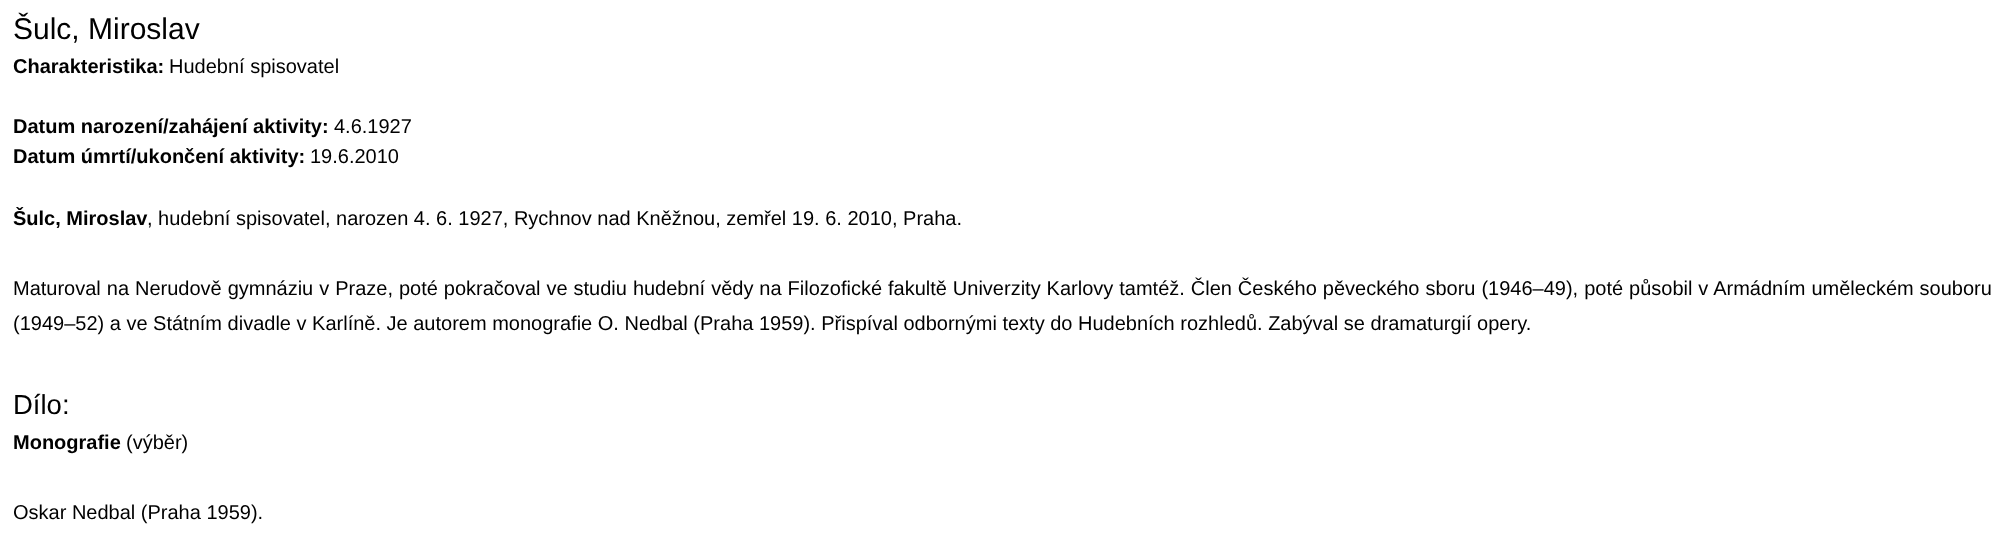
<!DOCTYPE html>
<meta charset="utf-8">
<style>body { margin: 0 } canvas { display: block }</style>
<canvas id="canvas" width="2004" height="539"></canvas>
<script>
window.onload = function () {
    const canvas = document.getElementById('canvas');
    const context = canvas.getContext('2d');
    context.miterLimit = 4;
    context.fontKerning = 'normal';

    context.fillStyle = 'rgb(255, 255, 255)';
    context.fillRect(0, 0, 2004, 539);
    context.font = '30px Liberation Sans';
    context.fillStyle = 'rgb(0, 0, 0)';
    context.fillText('Šulc, Miroslav', 13, 39);
    context.font = 'bold 20px Liberation Sans';
    context.fillText('Charakteristika:', 13, 73);
    context.font = '20px Liberation Sans';
    context.fillText('Hudební spisovatel', 169, 73);
    context.font = 'bold 20px Liberation Sans';
    context.fillText('Datum narození/zahájení aktivity:', 13, 133);
    context.font = '20px Liberation Sans';
    context.fillText('4.6.1927', 334, 133);
    context.font = 'bold 20px Liberation Sans';
    context.fillText('Datum úmrtí/ukončení aktivity:', 13, 163);
    context.font = '20px Liberation Sans';
    context.fillText('19.6.2010', 310, 163);
    context.font = 'bold 20px Liberation Sans';
    context.fillText('Šulc, Miroslav', 13, 225);
    context.font = '20px Liberation Sans';
    context.fillText(', hudební spisovatel, narozen 4. 6. 1927, Rychnov nad Kněžnou, zemřel 19. 6. 2010, Praha.', 147, 225);
    context.wordSpacing = '0.4px';
    context.fillText('Maturoval na Nerudově gymnáziu v Praze, poté pokračoval ve studiu hudební vědy na Filozofické fakultě Univerzity Karlovy tamtéž. Člen Českého pěveckého sboru (1946–49), poté působil v Armádním uměleckém souboru', 13, 295);
    context.wordSpacing = '0px';
    context.fillText('(1949–52) a ve Státním divadle v Karlíně. Je autorem monografie O. Nedbal (Praha 1959). Přispíval odbornými texty do Hudebních rozhledů. Zabýval se dramaturgií opery.', 13, 330);
    context.font = '27.5px Liberation Sans';
    context.fillText('Dílo:', 13, 414);
    context.font = 'bold 20px Liberation Sans';
    context.fillText('Monografie', 13, 449);
    context.font = '20px Liberation Sans';
    context.fillText('(výběr)', 126, 449);
    context.fillText('Oskar Nedbal (Praha 1959).', 13, 519);
};
</script>
